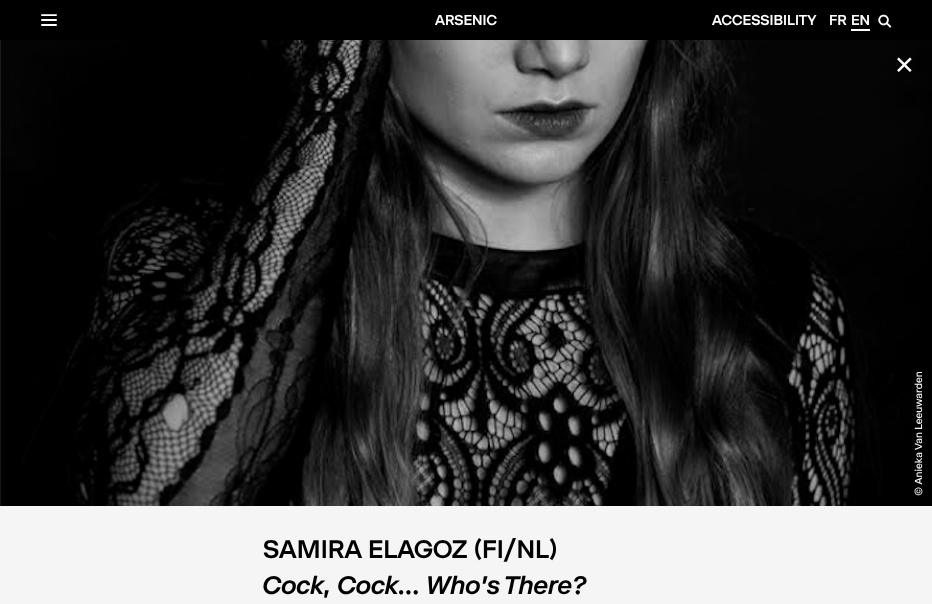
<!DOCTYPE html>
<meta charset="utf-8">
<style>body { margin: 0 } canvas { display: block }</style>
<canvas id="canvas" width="932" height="604"></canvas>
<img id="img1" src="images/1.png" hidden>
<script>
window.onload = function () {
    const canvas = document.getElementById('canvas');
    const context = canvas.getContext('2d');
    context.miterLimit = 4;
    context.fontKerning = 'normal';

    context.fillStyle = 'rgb(245, 245, 245)';
    context.fillRect(0, 0, 932, 604);
    context.fillStyle = 'rgb(0, 0, 0)';
    context.fillRect(0, 0, 932, 40);
    context.fillStyle = 'rgb(255, 255, 255)';
    context.fillRect(851, 29, 19, 2);
    context.drawImage(document.getElementById('img1'), 0, 40, 932, 466);
    context.font = '500 18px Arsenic';
    context.fillText('☰', 40, 26);
    context.font = '500 15.25px Arsenic';
    context.fillText('ARSENIC', 435, 25);
    context.fillText('ACCESSIBILITY', 712, 25);
    context.fillText('FR', 829, 25);
    context.fillText('EN', 851, 25);
    context.fillText('🔎', 878, 25);
    context.font = '22px Arsenic';
    context.fillText('✕', 896, 72);
    context.font = '10.75px Arsenic';
    context.fillStyle = 'rgb(245, 245, 245)';
    context.save();
    context.translate(922, 496);
    context.rotate(-90 * Math.PI / 180);
    context.fillText('© Anieka Van Leeuwarden', 0, 0);
    context.restore();
    context.font = '500 27px Arsenic';
    context.fillStyle = 'rgb(0, 0, 0)';
    context.fillText('SAMIRA ELAGOZ (FI/NL)', 263, 558);
    context.font = 'italic 500 27px Arsenic';
    context.fillText('Cock, Cock… Who’s There?', 263, 594);
};
</script>
